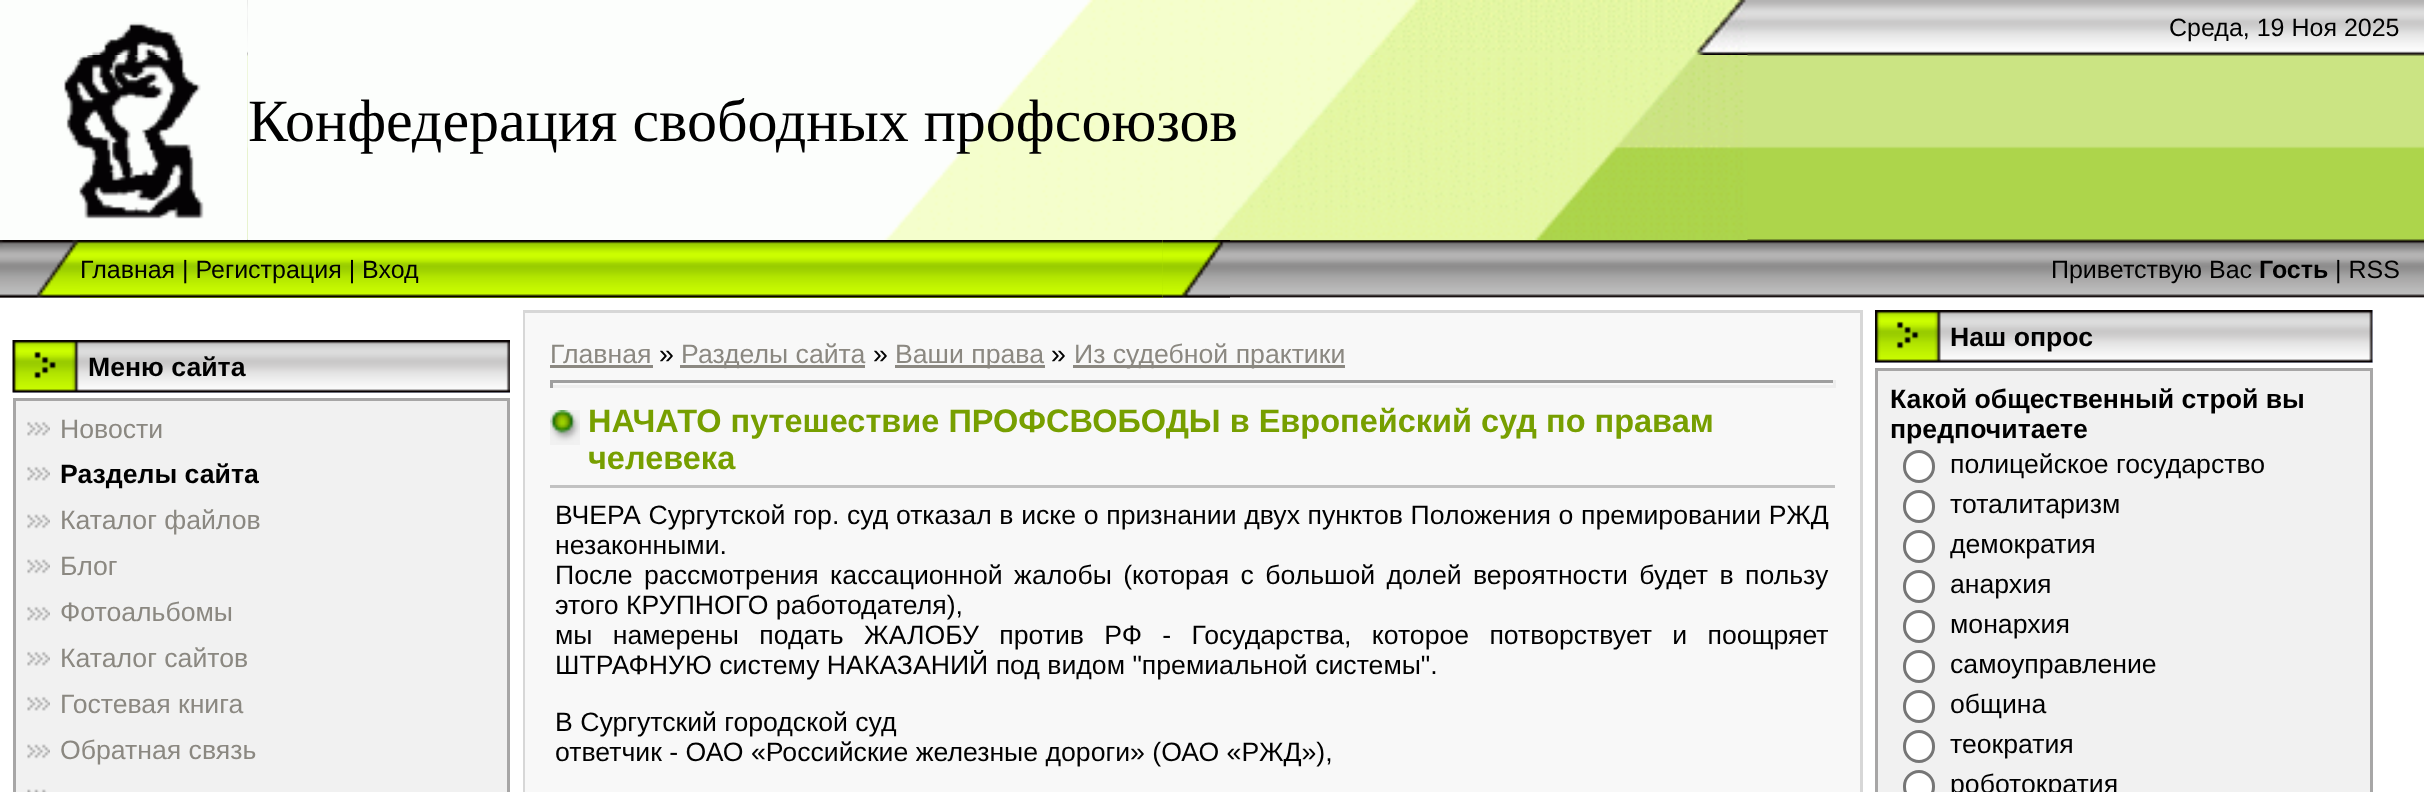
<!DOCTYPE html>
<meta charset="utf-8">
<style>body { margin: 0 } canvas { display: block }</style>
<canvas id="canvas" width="2424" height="792"></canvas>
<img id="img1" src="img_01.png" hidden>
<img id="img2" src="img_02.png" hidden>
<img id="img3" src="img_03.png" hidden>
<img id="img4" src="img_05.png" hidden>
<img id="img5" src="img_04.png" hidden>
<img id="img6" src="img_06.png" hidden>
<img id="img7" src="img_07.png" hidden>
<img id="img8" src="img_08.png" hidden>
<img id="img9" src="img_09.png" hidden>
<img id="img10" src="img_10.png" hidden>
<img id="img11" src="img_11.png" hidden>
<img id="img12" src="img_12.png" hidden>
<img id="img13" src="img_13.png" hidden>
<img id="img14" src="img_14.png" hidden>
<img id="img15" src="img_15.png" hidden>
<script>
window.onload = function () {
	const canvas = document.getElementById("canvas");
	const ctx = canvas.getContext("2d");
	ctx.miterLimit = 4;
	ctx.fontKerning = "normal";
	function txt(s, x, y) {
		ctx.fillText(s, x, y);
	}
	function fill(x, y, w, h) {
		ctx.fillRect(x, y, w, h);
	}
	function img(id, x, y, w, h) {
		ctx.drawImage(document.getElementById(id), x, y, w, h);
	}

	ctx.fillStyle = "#FFFFFF";
	fill(0, 0, 2424, 792);
	img("img1", 0, 0, 2424, 298);
	img("img2", 0, 0, 248, 55);
	img("img3", 247, 0, 1501, 55);
	img("img4", 247, 55, 1501, 185);
	img("img5", 0, 55, 248, 185);
	img("img6", 0, 240, 80, 58);
	ctx.fillStyle = "#B0E300";
	fill(80, 240, 1083, 58);
	img("img7", 80, 240, 1083, 58);
	img("img8", 1162, 240, 68, 58);
	ctx.fillStyle = "#D4DFF7";
	fill(13, 392, 497, 1);
	img("img9", 12, 340, 498, 53);
	ctx.fillStyle = "#F1F1F1";
	ctx.beginPath();
	ctx.rect(14.5, 399.5, 494, 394);
	ctx.fill();
	ctx.strokeStyle = "#A7A6A6";
	ctx.lineWidth = 3;
	ctx.stroke();
	img("img10", 27, 421, 23, 15);
	img("img10", 27, 466, 23, 15);
	img("img11", 27, 514, 23, 15);
	img("img12", 27, 559, 23, 15);
	img("img10", 27, 606, 23, 15);
	img("img10", 27, 651, 23, 15);
	img("img10", 27, 696, 23, 15);
	img("img12", 27, 744, 23, 15);
	img("img13", 27, 789, 20, 3);
	ctx.strokeStyle = "#D7D7D7";
	ctx.strokeRect(524.5, 311.5, 1337, 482);
	ctx.fillStyle = "#F8F8F8";
	fill(525, 313, 1335, 479);
	ctx.fillStyle = "#8B8881";
	fill(550, 365, 103, 3);
	fill(680, 365, 185, 3);
	fill(895, 365, 150, 3);
	fill(1073, 365, 272, 3);
	ctx.fillStyle = "#9F9F9F";
	fill(550, 380, 1285, 3);
	ctx.fillStyle = "#EEEEEE";
	fill(1833, 380, 3, 8);
	fill(550, 385, 1285, 3);
	ctx.fillStyle = "#9F9F9F";
	fill(550, 380, 3, 8);
	img("img14", 550, 410, 30, 35);
	ctx.fillStyle = "#C2C2C2";
	fill(550, 485, 1285, 3);
	ctx.fillStyle = "#D4DFF7";
	fill(1875, 310, 498, 53);
	img("img15", 1875, 310, 498, 53);
	ctx.fillStyle = "#F1F1F1";
	ctx.beginPath();
	ctx.rect(1876.5, 369.5, 495, 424);
	ctx.fill();
	ctx.strokeStyle = "#A7A6A6";
	ctx.stroke();
	ctx.fillStyle = "#FFFFFF";
	ctx.beginPath();
	ctx.roundRect(1904.5, 451.5, 29, 30, 14.5);
	ctx.fill();
	ctx.strokeStyle = "#767676";
	ctx.stroke();
	ctx.beginPath();
	ctx.roundRect(1904.5, 491.5, 29, 30, 14.5);
	ctx.fill();
	ctx.stroke();
	ctx.beginPath();
	ctx.roundRect(1904.5, 531.5, 29, 30, 14.5);
	ctx.fill();
	ctx.stroke();
	ctx.beginPath();
	ctx.roundRect(1904.5, 571.5, 29, 30, 14.5);
	ctx.fill();
	ctx.stroke();
	ctx.beginPath();
	ctx.roundRect(1904.5, 611.5, 29, 30, 14.5);
	ctx.fill();
	ctx.stroke();
	ctx.beginPath();
	ctx.roundRect(1904.5, 651.5, 29, 30, 14.5);
	ctx.fill();
	ctx.stroke();
	ctx.beginPath();
	ctx.roundRect(1904.5, 691.5, 29, 30, 14.5);
	ctx.fill();
	ctx.stroke();
	ctx.beginPath();
	ctx.roundRect(1904.5, 731.5, 29, 30, 14.5);
	ctx.fill();
	ctx.stroke();
	ctx.beginPath();
	ctx.roundRect(1904.5, 771.5, 29, 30, 14.5);
	ctx.fill();
	ctx.stroke();
	ctx.font = "25px Liberation Sans";
	ctx.fillStyle = "#000000";
	txt("Среда, 19 Ноя 2025", 2169, 36);
	ctx.font = "60px Liberation Serif";
	txt("Конфедерация свободных профсоюзов", 248, 141);
	ctx.font = "25px Liberation Sans";
	txt("Главная | Регистрация | Вход", 80, 278);
	txt("Приветствую Вас", 2051, 278);
	ctx.font = "bold 25px Liberation Sans";
	txt("Гость", 2259, 278);
	ctx.font = "25px Liberation Sans";
	txt("| RSS", 2335, 278);
	ctx.font = "bold 26.65px Liberation Sans";
	txt("Меню сайта", 88, 376);
	ctx.font = "26.65px Liberation Sans";
	ctx.fillStyle = "#8B8881";
	txt("Новости", 60, 438);
	ctx.font = "bold 26.65px Liberation Sans";
	ctx.fillStyle = "#000000";
	txt("Разделы сайта", 60, 483);
	ctx.font = "26.65px Liberation Sans";
	ctx.fillStyle = "#8B8881";
	txt("Каталог файлов", 60, 529);
	txt("Блог", 60, 575);
	txt("Фотоальбомы", 60, 621);
	txt("Каталог сайтов", 60, 667);
	txt("Гостевая книга", 60, 713);
	txt("Обратная связь", 60, 759);
	txt("Главная", 550, 363);
	ctx.fillStyle = "#000000";
	txt("»", 659, 363);
	ctx.fillStyle = "#8B8881";
	txt("Разделы сайта", 681, 363);
	ctx.fillStyle = "#000000";
	txt("»", 873, 363);
	ctx.fillStyle = "#8B8881";
	txt("Ваши права", 895, 363);
	ctx.fillStyle = "#000000";
	txt("»", 1051, 363);
	ctx.fillStyle = "#8B8881";
	txt("Из судебной практики", 1074, 363);
	ctx.font = "bold 32.5px Liberation Sans";
	ctx.fillStyle = "#779F00";
	txt("НАЧАТО путешествие ПРОФСВОБОДЫ в Европейский суд по правам", 588, 432);
	txt("челевека", 588, 469);
	ctx.wordSpacing = "0.25px";
	ctx.font = "26.65px Liberation Sans";
	ctx.fillStyle = "#000000";
	txt("ВЧЕРА Сургутской гор. суд отказал в иске о признании двух пунктов Положения о премировании РЖД", 555, 524);
	ctx.wordSpacing = "0px";
	txt("незаконными.", 555, 554);
	ctx.wordSpacing = "4px";
	txt("После рассмотрения кассационной жалобы (которая с большой долей вероятности будет в пользу", 555, 584);
	ctx.wordSpacing = "0px";
	txt("этого КРУПНОГО работодателя),", 555, 614);
	ctx.wordSpacing = "12.9px";
	txt("мы намерены подать ЖАЛОБУ против РФ - Государства, которое потворствует и поощряет", 555, 644);
	ctx.wordSpacing = "0px";
	txt("ШТРАФНУЮ систему НАКАЗАНИЙ под видом \"премиальной системы\".", 555, 674);
	txt("В Сургутский городской суд", 555, 731);
	txt("ответчик - ОАО «Российские железные дороги» (ОАО «РЖД»),", 555, 761);
	ctx.font = "bold 26.65px Liberation Sans";
	txt("Наш опрос", 1950, 346);
	txt("Какой общественный строй вы", 1890, 408);
	txt("предпочитаете", 1890, 438);
	ctx.font = "26.65px Liberation Sans";
	txt("полицейское государство", 1950, 473);
	txt("тоталитаризм", 1950, 513);
	txt("демократия", 1950, 553);
	txt("анархия", 1950, 593);
	txt("монархия", 1950, 633);
	txt("самоуправление", 1950, 673);
	txt("община", 1950, 713);
	txt("теократия", 1950, 753);
	txt("роботократия", 1950, 793);
};
</script>
